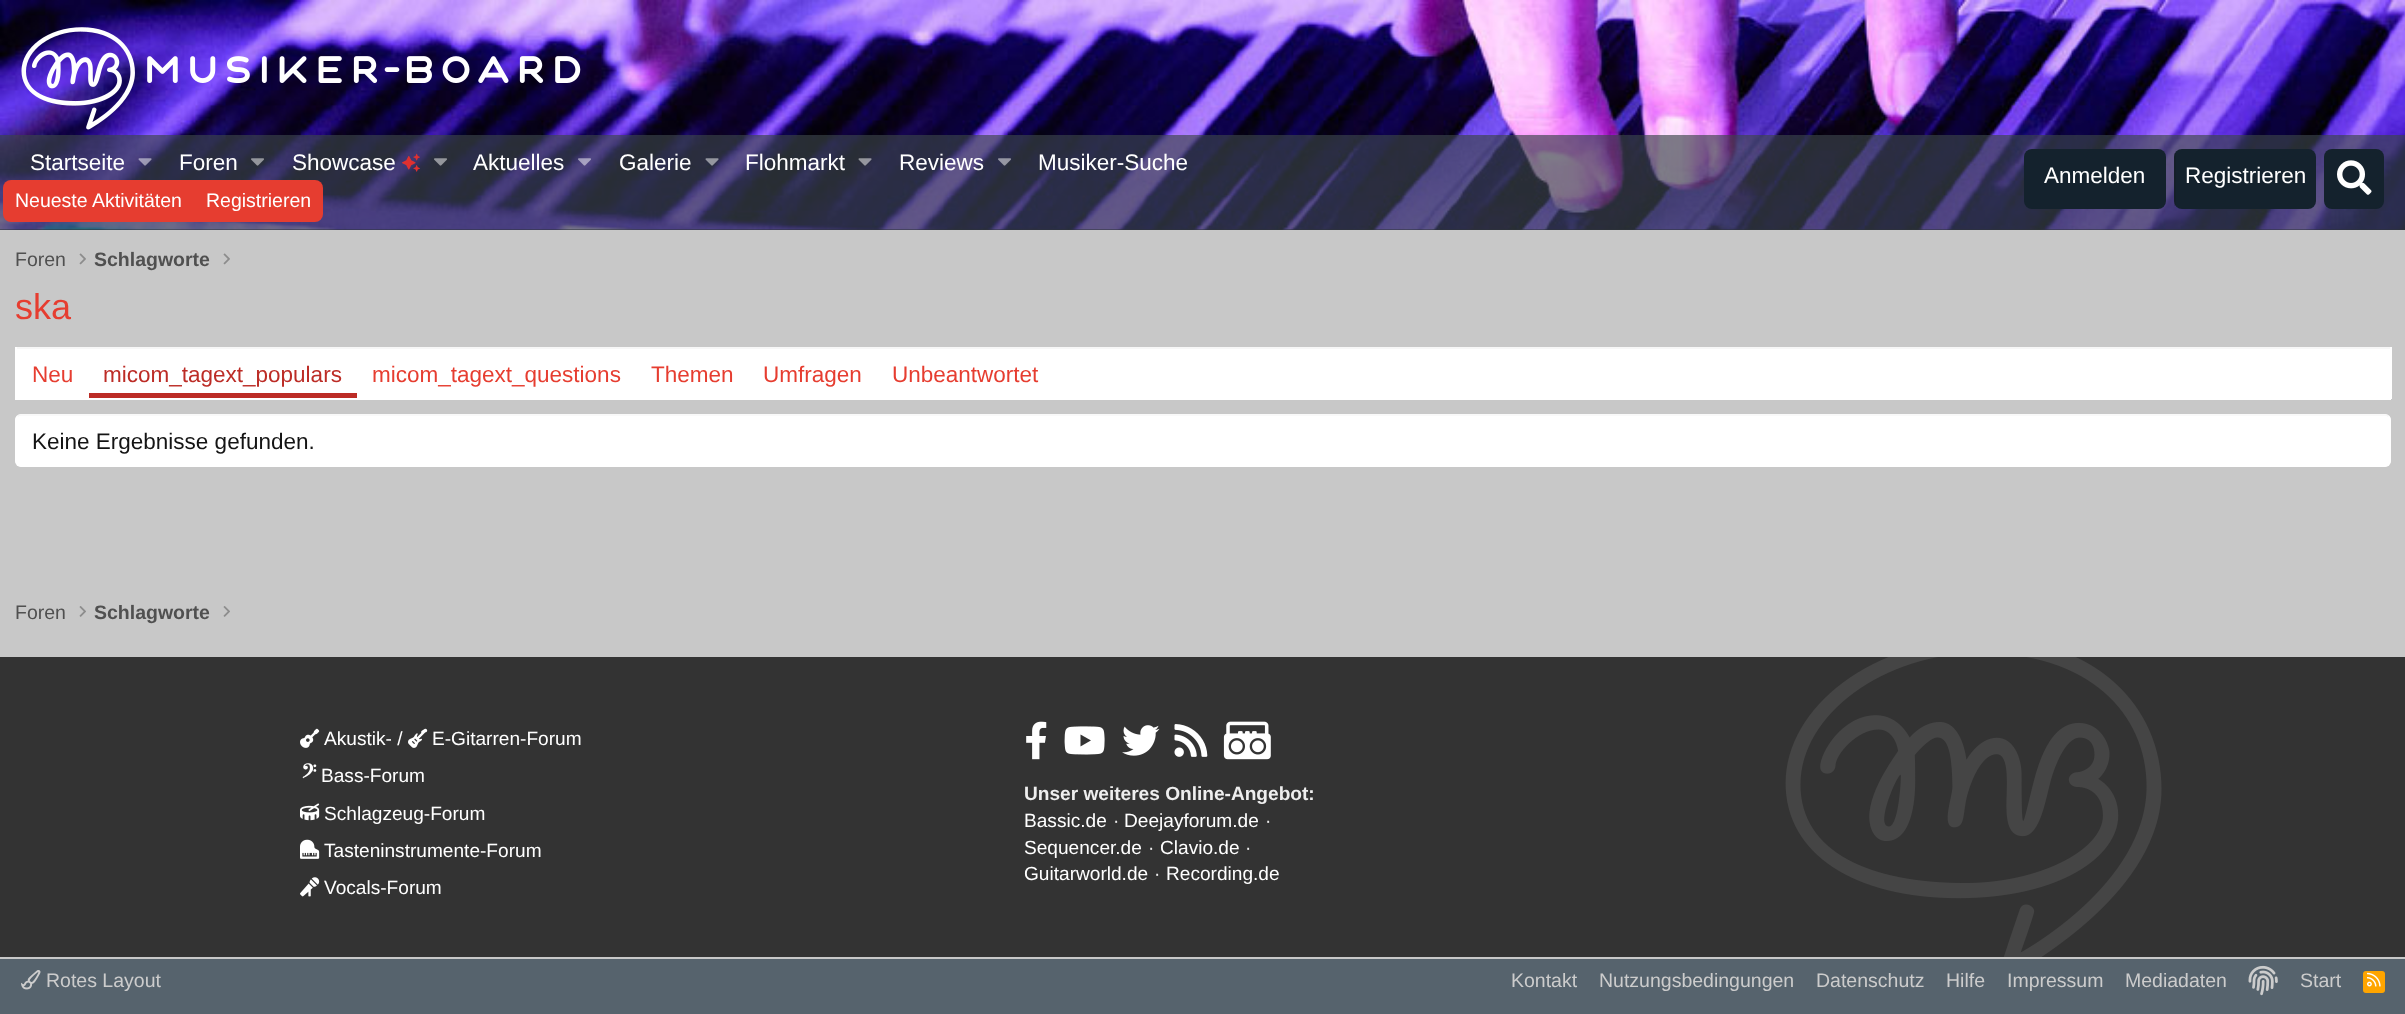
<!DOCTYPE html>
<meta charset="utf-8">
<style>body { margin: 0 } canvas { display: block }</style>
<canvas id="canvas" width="2405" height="1014"></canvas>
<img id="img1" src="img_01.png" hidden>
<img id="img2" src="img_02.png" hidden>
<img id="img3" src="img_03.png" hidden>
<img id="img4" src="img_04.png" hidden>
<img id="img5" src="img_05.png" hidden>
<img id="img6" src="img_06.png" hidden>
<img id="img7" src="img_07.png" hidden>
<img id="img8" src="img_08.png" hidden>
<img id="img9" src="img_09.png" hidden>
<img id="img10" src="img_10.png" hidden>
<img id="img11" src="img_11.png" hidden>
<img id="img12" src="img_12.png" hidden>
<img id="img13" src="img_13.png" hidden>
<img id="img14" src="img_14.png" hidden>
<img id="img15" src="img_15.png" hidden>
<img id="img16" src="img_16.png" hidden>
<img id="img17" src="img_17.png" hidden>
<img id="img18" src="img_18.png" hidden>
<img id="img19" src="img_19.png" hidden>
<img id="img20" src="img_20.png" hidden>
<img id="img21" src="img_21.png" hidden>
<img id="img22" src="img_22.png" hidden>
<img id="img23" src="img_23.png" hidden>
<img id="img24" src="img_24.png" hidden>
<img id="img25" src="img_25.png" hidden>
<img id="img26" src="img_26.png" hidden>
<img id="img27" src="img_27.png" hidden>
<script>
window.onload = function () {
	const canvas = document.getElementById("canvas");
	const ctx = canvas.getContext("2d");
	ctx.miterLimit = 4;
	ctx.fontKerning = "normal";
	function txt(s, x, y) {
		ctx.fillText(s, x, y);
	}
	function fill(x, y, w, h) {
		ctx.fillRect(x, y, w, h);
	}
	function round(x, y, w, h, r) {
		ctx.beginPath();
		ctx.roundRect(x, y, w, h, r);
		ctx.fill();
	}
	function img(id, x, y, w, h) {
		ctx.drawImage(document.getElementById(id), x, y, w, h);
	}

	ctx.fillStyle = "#C8C8C8";
	fill(0, 0, 2405, 1014);
	ctx.fillStyle = "#141414";
	fill(0, 229, 2405, 1);
	img("img1", 0, 0, 2405, 230);
	img("img2", 21, 27, 560, 103);
	ctx.fillStyle = "rgba(59, 68, 75, 0.66)";
	fill(0, 135, 2405, 45);
	img("img3", 138, 158, 14, 8);
	img("img4", 251, 158, 13, 8);
	img("img5", 402, 153, 18, 19);
	img("img6", 434, 158, 13, 8);
	img("img7", 578, 158, 13, 8);
	img("img8", 705, 158, 14, 8);
	img("img9", 858, 158, 14, 8);
	img("img10", 998, 158, 13, 8);
	fill(0, 180, 2405, 50);
	ctx.fillStyle = "#14222D";
	round(2024, 149, 142, 60, 8);
	round(2174, 149, 142, 60, 8);
	ctx.fillStyle = "rgba(20, 20, 20, 0.15)";
	fill(2174, 153, 2, 53);
	ctx.fillStyle = "#14222D";
	round(2324, 149, 60, 60, 8);
	img("img11", 2337, 160, 35, 35);
	ctx.fillStyle = "#E63D30";
	ctx.beginPath();
	ctx.roundRect(3, 180, 191, 42, [8, 0, 0, 8]);
	ctx.fill();
	ctx.beginPath();
	ctx.roundRect(194, 180, 129, 42, [0, 8, 8, 0]);
	ctx.fill();
	img("img12", 79, 253, 7, 12);
	img("img12", 223, 253, 7, 12);
	ctx.fillStyle = "#FFFFFF";
	fill(17, 349, 2373, 49);
	ctx.fillStyle = "#F7F7F7";
	fill(15, 347, 2376, 2);
	ctx.fillStyle = "#FFFFFF";
	fill(2390, 347, 2, 52);
	fill(15, 398, 2376, 2);
	fill(15, 347, 2, 52);
	ctx.fillStyle = "#BC2C26";
	fill(89, 393, 268, 5);
	ctx.fillStyle = "#FFFFFF";
	round(15, 414, 2376, 53, 6);
	ctx.beginPath();
	ctx.moveTo(17.5, 416.5);
	ctx.bezierCurveTo(18.5, 415.5, 19.5, 415, 21, 415);
	ctx.lineTo(2385, 415);
	ctx.bezierCurveTo(2386.5, 415, 2387.5, 415.5, 2388.5, 416.5);
	ctx.strokeStyle = "#F7F7F7";
	ctx.lineWidth = 1.5;
	ctx.stroke();
	ctx.beginPath();
	ctx.moveTo(2388.5, 416.5);
	ctx.bezierCurveTo(2389.5, 417.5, 2390, 418.5, 2390, 420);
	ctx.lineTo(2390, 460.5);
	ctx.bezierCurveTo(2390, 462, 2389.5, 463, 2388.5, 464);
	ctx.bezierCurveTo(2387.5, 465, 2386.5, 466, 2385, 466);
	ctx.lineTo(21, 466);
	ctx.bezierCurveTo(19.5, 466, 18.5, 465, 17.5, 464);
	ctx.bezierCurveTo(16.5, 463, 16, 462, 16, 460.5);
	ctx.lineTo(16, 420);
	ctx.bezierCurveTo(16, 418.5, 16.5, 417.5, 17.5, 416.5);
	ctx.strokeStyle = "#FFFFFF";
	ctx.stroke();
	img("img13", 79, 606, 7, 11);
	img("img13", 223, 606, 7, 11);
	ctx.fillStyle = "#333333";
	fill(0, 657, 2405, 300);
	img("img14", 300, 728, 20, 20);
	img("img15", 408, 728, 20, 20);
	img("img16", 300, 803, 20, 18);
	img("img17", 300, 839, 20, 20);
	img("img18", 300, 877, 20, 20);
	img("img19", 1026, 721, 21, 39);
	img("img20", 1064, 726, 41, 29);
	img("img21", 1122, 725, 38, 31);
	img("img22", 1174, 724, 34, 33);
	img("img23", 1223, 721, 48, 39);
	img("img24", 1785, 657, 377, 300);
	ctx.fillStyle = "#56636D";
	fill(0, 959, 2405, 55);
	img("img25", 21, 970, 20, 20);
	img("img26", 2248, 965, 30, 31);
	ctx.fillStyle = "#FFA500";
	round(2363, 971, 22, 22, 3);
	img("img27", 2367, 972, 14, 15);
	ctx.font = "22.5px Liberation Sans";
	ctx.fillStyle = "#FFFFFF";
	txt("Startseite", 30, 170);
	txt("Foren", 179, 170);
	txt("Showcase", 292, 170);
	txt("Aktuelles", 473, 170);
	txt("Galerie", 619, 170);
	txt("Flohmarkt", 745, 170);
	txt("Reviews", 899, 170);
	txt("Musiker-Suche", 1038, 170);
	txt("Anmelden", 2044, 183);
	txt("Registrieren", 2185, 183);
	ctx.font = "19.5px Liberation Sans";
	txt("Neueste Aktivitäten", 15, 207);
	txt("Registrieren", 206, 207);
	ctx.fillStyle = "#505050";
	txt("Foren", 15, 266);
	ctx.font = "bold 19.5px Liberation Sans";
	txt("Schlagworte", 94, 266);
	ctx.font = "36px Liberation Sans";
	ctx.fillStyle = "#E63D30";
	txt("ska", 15, 319);
	ctx.font = "22.5px Liberation Sans";
	txt("Neu", 32, 382);
	ctx.fillStyle = "#BC2C26";
	txt("micom_tagext_populars", 103, 382);
	ctx.fillStyle = "#E63D30";
	txt("micom_tagext_questions", 372, 382);
	txt("Themen", 651, 382);
	txt("Umfragen", 763, 382);
	txt("Unbeantwortet", 892, 382);
	ctx.fillStyle = "#141414";
	txt("Keine Ergebnisse gefunden.", 32, 449);
	ctx.font = "19.5px Liberation Sans";
	ctx.fillStyle = "#505050";
	txt("Foren", 15, 619);
	ctx.font = "bold 19.5px Liberation Sans";
	txt("Schlagworte", 94, 619);
	ctx.font = "19.1px Liberation Sans";
	ctx.fillStyle = "#FFFFFF";
	txt("Akustik- /", 324, 745);
	txt("E-Gitarren-Forum", 432, 745);
	ctx.font = "bold 24px FreeSerif";
	txt("𝄢", 301, 782);
	ctx.font = "19.1px Liberation Sans";
	txt("Bass-Forum", 321, 782);
	txt("Schlagzeug-Forum", 324, 820);
	txt("Tasteninstrumente-Forum", 324, 857);
	txt("Vocals-Forum", 324, 894);
	ctx.font = "bold 19.1px Liberation Sans";
	ctx.fillStyle = "#EEEEEE";
	txt("Unser weiteres Online-Angebot:", 1024, 800);
	ctx.font = "19.1px Liberation Sans";
	ctx.fillStyle = "#FFFFFF";
	txt("Bassic.de", 1024, 827);
	ctx.fillStyle = "#EEEEEE";
	txt("·", 1113, 827);
	ctx.fillStyle = "#FFFFFF";
	txt("Deejayforum.de", 1124, 827);
	ctx.fillStyle = "#EEEEEE";
	txt("·", 1265, 827);
	ctx.fillStyle = "#FFFFFF";
	txt("Sequencer.de", 1024, 854);
	ctx.fillStyle = "#EEEEEE";
	txt("·", 1148, 854);
	ctx.fillStyle = "#FFFFFF";
	txt("Clavio.de", 1160, 854);
	ctx.fillStyle = "#EEEEEE";
	txt("·", 1245, 854);
	ctx.fillStyle = "#FFFFFF";
	txt("Guitarworld.de", 1024, 880);
	ctx.fillStyle = "#EEEEEE";
	txt("·", 1154, 880);
	ctx.fillStyle = "#FFFFFF";
	txt("Recording.de", 1166, 880);
	ctx.font = "19.5px Liberation Sans";
	ctx.fillStyle = "#CCCCCC";
	txt("Rotes Layout", 46, 987);
	txt("Kontakt", 1511, 987);
	txt("Nutzungsbedingungen", 1599, 987);
	txt("Datenschutz", 1816, 987);
	txt("Hilfe", 1946, 987);
	txt("Impressum", 2007, 987);
	txt("Mediadaten", 2125, 987);
	txt("Start", 2300, 987);
};
</script>
